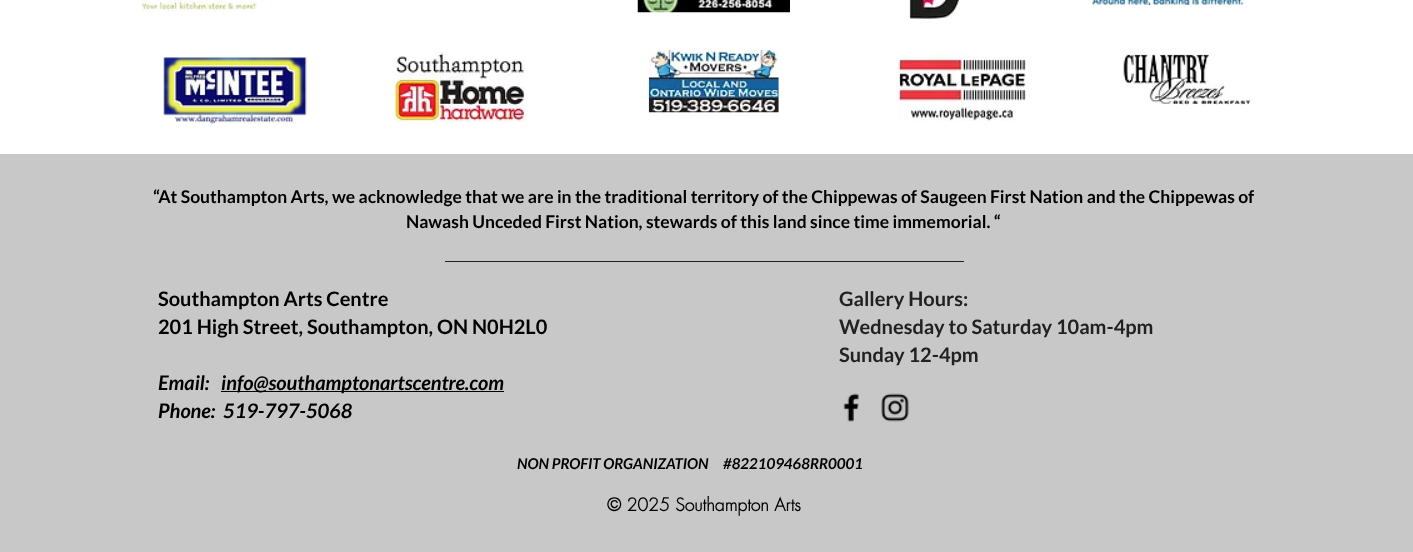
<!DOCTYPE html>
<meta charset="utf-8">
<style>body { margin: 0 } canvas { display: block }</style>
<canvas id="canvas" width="1413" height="552"></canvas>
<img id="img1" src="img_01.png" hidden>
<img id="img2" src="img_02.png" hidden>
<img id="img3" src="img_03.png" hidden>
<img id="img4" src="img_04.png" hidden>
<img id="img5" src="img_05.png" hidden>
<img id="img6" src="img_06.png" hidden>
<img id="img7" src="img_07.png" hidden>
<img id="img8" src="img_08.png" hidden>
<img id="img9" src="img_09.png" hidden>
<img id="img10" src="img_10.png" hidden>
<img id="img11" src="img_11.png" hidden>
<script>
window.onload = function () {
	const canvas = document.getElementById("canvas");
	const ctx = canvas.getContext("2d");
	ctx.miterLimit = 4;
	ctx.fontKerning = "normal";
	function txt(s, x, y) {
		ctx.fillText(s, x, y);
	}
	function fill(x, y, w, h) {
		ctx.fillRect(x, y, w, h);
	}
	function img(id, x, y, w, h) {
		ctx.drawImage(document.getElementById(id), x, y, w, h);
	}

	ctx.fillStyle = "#C8C8C8";
	fill(0, 0, 1413, 552);
	ctx.fillStyle = "#FFFFFF";
	fill(0, 0, 1413, 154);
	img("img1", 141, 0, 117, 15);
	img("img2", 637, 0, 153, 13);
	img("img3", 908, 0, 51, 19);
	img("img4", 1092, 0, 152, 5);
	img("img5", 163, 57, 144, 67);
	img("img6", 393, 51, 133, 72);
	img("img7", 648, 50, 131, 63);
	img("img8", 896, 51, 130, 70);
	img("img9", 1123, 54, 128, 51);
	ctx.fillStyle = "#212121";
	fill(445, 261, 519, 1);
	ctx.fillStyle = "#000000";
	fill(221, 391, 283, 1);
	img("img10", 843, 393, 16, 29);
	img("img11", 881, 393, 28, 29);
	ctx.font = "bold 17.5px Lato";
	txt("“At Southampton Arts, we acknowledge that we are in the traditional territory of the Chippewas of Saugeen First Nation and the Chippewas of", 153, 203);
	txt("Nawash Unceded First Nation, stewards of this land since time immemorial. “", 406, 228);
	ctx.font = "bold 20px Lato";
	txt("Southampton Arts Centre", 158, 306);
	txt("201 High Street, Southampton, ON N0H2L0", 158, 334);
	ctx.font = "italic bold 20px Lato";
	txt("Email:", 158, 390);
	txt("info@southamptonartscentre.com", 221, 390);
	txt("Phone:  519-797-5068", 158, 418);
	ctx.font = "bold 20px Lato";
	ctx.fillStyle = "#212121";
	txt("Gallery Hours:", 839, 306);
	txt("Wednesday to Saturday 10am-4pm", 839, 334);
	txt("Sunday 12-4pm", 839, 362);
	ctx.font = "italic bold 15px Lato";
	ctx.fillStyle = "#000000";
	txt("NON PROFIT ORGANIZATION     #822109468RR0001", 517, 469);
	ctx.font = "bold 17.5px futura";
	txt("© 2025 Southampton Arts", 607, 511);
};
</script>
